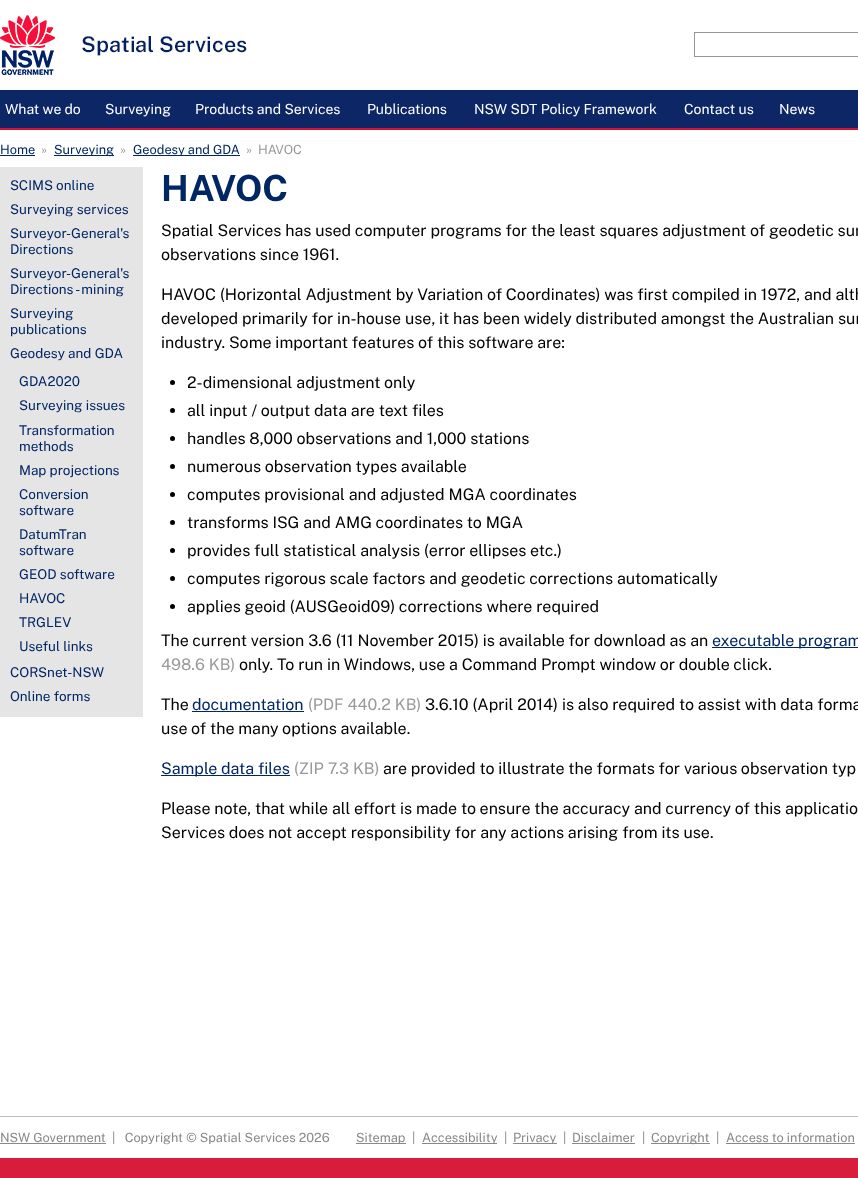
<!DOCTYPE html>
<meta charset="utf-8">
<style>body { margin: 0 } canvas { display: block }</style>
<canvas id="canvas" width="858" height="1178"></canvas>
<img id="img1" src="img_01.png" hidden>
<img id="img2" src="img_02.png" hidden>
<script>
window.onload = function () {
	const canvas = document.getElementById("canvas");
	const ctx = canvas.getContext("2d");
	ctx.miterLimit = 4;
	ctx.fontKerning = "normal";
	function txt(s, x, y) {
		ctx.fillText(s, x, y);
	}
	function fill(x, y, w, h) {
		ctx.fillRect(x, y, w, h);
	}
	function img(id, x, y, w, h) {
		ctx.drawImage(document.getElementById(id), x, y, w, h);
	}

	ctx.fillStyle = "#FFFFFF";
	fill(0, 0, 858, 1178);
	img("img1", 0, 90, 858, 40);
	img("img2", 0, 15, 247, 60);
	ctx.strokeStyle = "#969696";
	ctx.strokeRect(694.5, 32.5, 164, 24);
	ctx.fillStyle = "#002664";
	fill(0, 155, 35, 1);
	fill(54, 155, 60, 1);
	fill(133, 155, 107, 1);
	ctx.fillStyle = "#E5E5E5";
	fill(0, 167, 143, 550);
	ctx.fillStyle = "#000000";
	ctx.beginPath();
	ctx.arc(172.5, 382.5, 2.5, 0, Math.PI * 2);
	ctx.fill();
	ctx.beginPath();
	ctx.arc(172.5, 410.5, 2.5, 0, Math.PI * 2);
	ctx.fill();
	ctx.beginPath();
	ctx.arc(172.5, 438.5, 2.5, 0, Math.PI * 2);
	ctx.fill();
	ctx.beginPath();
	ctx.arc(172.5, 466.5, 2.5, 0, Math.PI * 2);
	ctx.fill();
	ctx.beginPath();
	ctx.arc(172.5, 494.5, 2.5, 0, Math.PI * 2);
	ctx.fill();
	ctx.beginPath();
	ctx.arc(172.5, 522.5, 2.5, 0, Math.PI * 2);
	ctx.fill();
	ctx.beginPath();
	ctx.arc(172.5, 550.5, 2.5, 0, Math.PI * 2);
	ctx.fill();
	ctx.beginPath();
	ctx.arc(172.5, 578.5, 2.5, 0, Math.PI * 2);
	ctx.fill();
	ctx.beginPath();
	ctx.arc(172.5, 606.5, 2.5, 0, Math.PI * 2);
	ctx.fill();
	ctx.fillStyle = "#002664";
	fill(712, 647, 146, 1);
	fill(192, 711, 112, 1);
	fill(161, 775, 129, 1);
	ctx.fillStyle = "#BABEC6";
	fill(0, 1116, 858, 1);
	ctx.fillStyle = "#D71D3B";
	fill(0, 1158, 858, 20);
	ctx.fillStyle = "#888888";
	fill(0, 1143, 106, 1);
	fill(356, 1143, 50, 1);
	fill(422, 1143, 75, 1);
	fill(513, 1143, 44, 1);
	fill(572, 1143, 63, 1);
	fill(651, 1143, 59, 1);
	fill(726, 1143, 129, 1);
	ctx.font = "14px Public Sans";
	ctx.fillStyle = "#FFFFFF";
	txt("What we do", 5, 114);
	txt("Surveying", 105, 114);
	txt("Products and Services", 195, 114);
	txt("Publications", 367, 114);
	txt("NSW SDT Policy Framework", 474, 114);
	txt("Contact us", 684, 114);
	txt("News", 779, 114);
	ctx.font = "12.75px Public Sans";
	ctx.fillStyle = "#002664";
	txt("Home", 0, 154);
	ctx.fillStyle = "#999999";
	txt("»", 41, 154);
	ctx.fillStyle = "#002664";
	txt("Surveying", 54, 154);
	ctx.fillStyle = "#999999";
	txt("»", 120, 154);
	ctx.fillStyle = "#002664";
	txt("Geodesy and GDA", 133, 154);
	ctx.fillStyle = "#999999";
	txt("»", 246, 154);
	txt("HAVOC", 258, 154);
	ctx.font = "13.5px Public Sans";
	ctx.fillStyle = "#002664";
	txt("SCIMS online", 10, 190);
	txt("Surveying services", 10, 214);
	txt("Surveyor-General's", 10, 238);
	txt("Directions", 10, 254);
	txt("Surveyor-General's", 10, 278);
	txt("Directions - mining", 10, 294);
	txt("Surveying", 10, 318);
	txt("publications", 10, 334);
	txt("Geodesy and GDA", 10, 358);
	txt("GDA2020", 19, 386);
	txt("Surveying issues", 19, 410);
	txt("Transformation", 19, 435);
	txt("methods", 19, 451);
	txt("Map projections", 19, 475);
	txt("Conversion", 19, 499);
	txt("software", 19, 515);
	txt("DatumTran", 19, 539);
	txt("software", 19, 555);
	txt("GEOD software", 19, 579);
	txt("HAVOC", 19, 603);
	txt("TRGLEV", 19, 627);
	txt("Useful links", 19, 651);
	txt("CORSnet-NSW", 10, 677);
	txt("Online forms", 10, 701);
	ctx.font = "bold 36px Public Sans";
	txt("HAVOC", 161, 201);
	ctx.font = "16px Public Sans";
	ctx.fillStyle = "#000000";
	txt("Spatial Services has used computer programs for the least squares adjustment of geodetic sur", 161, 236);
	txt("observations since 1961.", 161, 260);
	txt("HAVOC (Horizontal Adjustment by Variation of Coordinates) was first compiled in 1972, and alth", 161, 300);
	txt("developed primarily for in-house use, it has been widely distributed amongst the Australian sur", 161, 324);
	txt("industry. Some important features of this software are:", 161, 348);
	txt("2-dimensional adjustment only", 187, 388);
	txt("all input / output data are text files", 187, 416);
	txt("handles 8,000 observations and 1,000 stations", 187, 444);
	txt("numerous observation types available", 187, 472);
	txt("computes provisional and adjusted MGA coordinates", 187, 500);
	txt("transforms ISG and AMG coordinates to MGA", 187, 528);
	txt("provides full statistical analysis (error ellipses etc.)", 187, 556);
	txt("computes rigorous scale factors and geodetic corrections automatically", 187, 584);
	txt("applies geoid (AUSGeoid09) corrections where required", 187, 612);
	txt("The current version 3.6 (11 November 2015) is available for download as an", 161, 646);
	ctx.fillStyle = "#002664";
	txt("executable program", 712, 646);
	ctx.fillStyle = "#999999";
	txt("498.6 KB)", 161, 670);
	ctx.fillStyle = "#000000";
	txt("only. To run in Windows, use a Command Prompt window or double click.", 239, 670);
	txt("The", 161, 710);
	ctx.fillStyle = "#002664";
	txt("documentation", 192, 710);
	ctx.fillStyle = "#999999";
	txt("(PDF 440.2 KB)", 308, 710);
	ctx.fillStyle = "#000000";
	txt("3.6.10 (April 2014) is also required to assist with data forma", 425, 710);
	txt("use of the many options available.", 161, 734);
	ctx.fillStyle = "#002664";
	txt("Sample data files", 161, 774);
	ctx.fillStyle = "#999999";
	txt("(ZIP 7.3 KB)", 294, 774);
	ctx.fillStyle = "#000000";
	txt("are provided to illustrate the formats for various observation typ", 383, 774);
	txt("Please note, that while all effort is made to ensure the accuracy and currency of this applicatio", 161, 814);
	txt("Services does not accept responsibility for any actions arising from its use.", 161, 838);
	ctx.font = "12.75px Public Sans";
	ctx.fillStyle = "#888888";
	txt("NSW Government", 0, 1142);
	txt("|   Copyright © Spatial Services 2026", 112, 1142);
	txt("Sitemap", 356, 1142);
	txt("|", 412, 1142);
	txt("Accessibility", 422, 1142);
	txt("|", 504, 1142);
	txt("Privacy", 513, 1142);
	txt("|", 563, 1142);
	txt("Disclaimer", 572, 1142);
	txt("|", 642, 1142);
	txt("Copyright", 651, 1142);
	txt("|", 716, 1142);
	txt("Access to information", 726, 1142);
};
</script>
